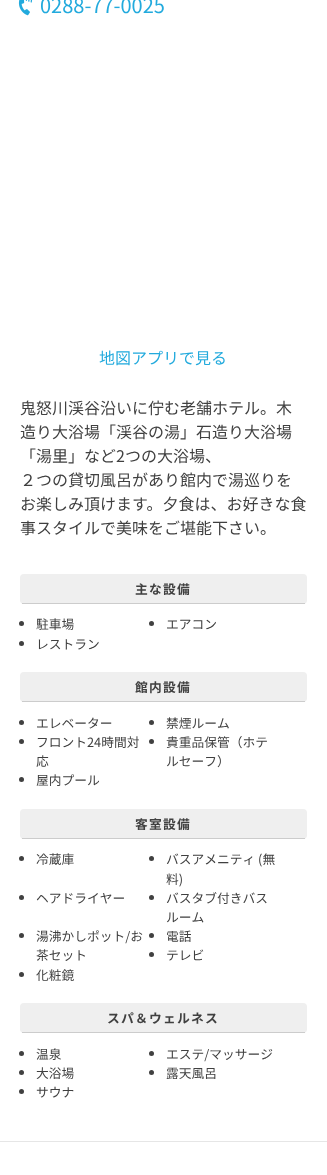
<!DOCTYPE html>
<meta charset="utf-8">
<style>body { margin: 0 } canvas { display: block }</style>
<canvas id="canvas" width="327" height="1175"></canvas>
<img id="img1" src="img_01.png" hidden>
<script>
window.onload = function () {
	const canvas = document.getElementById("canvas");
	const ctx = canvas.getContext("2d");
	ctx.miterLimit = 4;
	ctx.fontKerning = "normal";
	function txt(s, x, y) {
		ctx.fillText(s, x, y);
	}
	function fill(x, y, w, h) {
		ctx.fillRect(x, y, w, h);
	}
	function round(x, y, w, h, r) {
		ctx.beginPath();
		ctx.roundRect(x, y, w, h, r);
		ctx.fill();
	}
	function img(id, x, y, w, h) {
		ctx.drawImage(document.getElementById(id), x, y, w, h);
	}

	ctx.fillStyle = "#FFFFFF";
	fill(0, 0, 327, 1175);
	img("img1", 18, 0, 15, 16);
	ctx.fillStyle = "#EFEFEF";
	round(20, 574, 287, 30, 4);
	ctx.fillStyle = "#CCCCCC";
	fill(22, 603, 283, 1);
	ctx.fillStyle = "#404040";
	ctx.beginPath();
	ctx.arc(21.5, 623.5, 2.5, 0, Math.PI * 2);
	ctx.fill();
	ctx.beginPath();
	ctx.arc(151.5, 623.5, 2.5, 0, Math.PI * 2);
	ctx.fill();
	ctx.beginPath();
	ctx.arc(21.5, 643.5, 2.5, 0, Math.PI * 2);
	ctx.fill();
	ctx.fillStyle = "#EFEFEF";
	round(20, 672, 287, 30, 4);
	ctx.fillStyle = "#CCCCCC";
	fill(22, 701, 283, 1);
	ctx.fillStyle = "#404040";
	ctx.beginPath();
	ctx.arc(21.5, 722.5, 2.5, 0, Math.PI * 2);
	ctx.fill();
	ctx.beginPath();
	ctx.arc(151.5, 722.5, 2.5, 0, Math.PI * 2);
	ctx.fill();
	ctx.beginPath();
	ctx.arc(21.5, 741.5, 2.5, 0, Math.PI * 2);
	ctx.fill();
	ctx.beginPath();
	ctx.arc(151.5, 741.5, 2.5, 0, Math.PI * 2);
	ctx.fill();
	ctx.beginPath();
	ctx.arc(21.5, 779.5, 2.5, 0, Math.PI * 2);
	ctx.fill();
	ctx.fillStyle = "#EFEFEF";
	round(20, 809, 287, 30, 4);
	ctx.fillStyle = "#CCCCCC";
	fill(22, 838, 283, 1);
	ctx.fillStyle = "#404040";
	ctx.beginPath();
	ctx.arc(21.5, 858.5, 2.5, 0, Math.PI * 2);
	ctx.fill();
	ctx.beginPath();
	ctx.arc(151.5, 858.5, 2.5, 0, Math.PI * 2);
	ctx.fill();
	ctx.beginPath();
	ctx.arc(21.5, 897.5, 2.5, 0, Math.PI * 2);
	ctx.fill();
	ctx.beginPath();
	ctx.arc(151.5, 897.5, 2.5, 0, Math.PI * 2);
	ctx.fill();
	ctx.beginPath();
	ctx.arc(21.5, 935.5, 2.5, 0, Math.PI * 2);
	ctx.fill();
	ctx.beginPath();
	ctx.arc(151.5, 935.5, 2.5, 0, Math.PI * 2);
	ctx.fill();
	ctx.beginPath();
	ctx.arc(151.5, 954.5, 2.5, 0, Math.PI * 2);
	ctx.fill();
	ctx.beginPath();
	ctx.arc(21.5, 974.5, 2.5, 0, Math.PI * 2);
	ctx.fill();
	ctx.fillStyle = "#EFEFEF";
	round(20, 1003, 287, 30, 4);
	ctx.fillStyle = "#CCCCCC";
	fill(22, 1032, 283, 1);
	ctx.fillStyle = "#404040";
	ctx.beginPath();
	ctx.arc(21.5, 1053.5, 2.5, 0, Math.PI * 2);
	ctx.fill();
	ctx.beginPath();
	ctx.arc(151.5, 1053.5, 2.5, 0, Math.PI * 2);
	ctx.fill();
	ctx.beginPath();
	ctx.arc(21.5, 1072.5, 2.5, 0, Math.PI * 2);
	ctx.fill();
	ctx.beginPath();
	ctx.arc(151.5, 1072.5, 2.5, 0, Math.PI * 2);
	ctx.fill();
	ctx.beginPath();
	ctx.arc(21.5, 1091.5, 2.5, 0, Math.PI * 2);
	ctx.fill();
	ctx.fillStyle = "#E6E6E6";
	fill(0, 1141, 327, 1);
	ctx.font = "20px Noto Sans JP";
	ctx.fillStyle = "#22AADD";
	txt("0288-77-0025", 40, 13);
	ctx.font = "16px Noto Sans JP";
	txt("地図アプリで見る", 99, 364);
	ctx.fillStyle = "#404040";
	txt("鬼怒川渓谷沿いに佇む老舗ホテル。木", 20, 414);
	txt("造り大浴場「渓谷の湯」石造り大浴場", 20, 438);
	txt("「湯里」など2つの大浴場、", 20, 462);
	txt("２つの貸切風呂があり館内で湯巡りを", 20, 486);
	txt("お楽しみ頂けます。夕食は、お好きな食", 20, 510);
	txt("事スタイルで美味をご堪能下さい。", 20, 534);
	ctx.letterSpacing = "1.25px";
	ctx.font = "bold 12.75px Noto Sans JP";
	txt("主な設備", 135, 594);
	ctx.letterSpacing = "0px";
	ctx.font = "12.75px Noto Sans JP";
	txt("駐車場", 36, 629);
	txt("エアコン", 166, 629);
	txt("レストラン", 36, 649);
	ctx.letterSpacing = "1.25px";
	ctx.font = "bold 12.75px Noto Sans JP";
	txt("館内設備", 135, 692);
	ctx.letterSpacing = "0px";
	ctx.font = "12.75px Noto Sans JP";
	txt("エレベーター", 36, 728);
	txt("禁煙ルーム", 166, 728);
	txt("フロント24時間対", 36, 747);
	txt("応", 36, 766);
	txt("貴重品保管（ホテ", 166, 747);
	txt("ルセーフ）", 166, 766);
	txt("屋内プール", 36, 785);
	ctx.letterSpacing = "1.25px";
	ctx.font = "bold 12.75px Noto Sans JP";
	txt("客室設備", 135, 829);
	ctx.letterSpacing = "0px";
	ctx.font = "12.75px Noto Sans JP";
	txt("冷蔵庫", 36, 864);
	txt("バスアメニティ (無", 166, 864);
	txt("料)", 166, 884);
	txt("ヘアドライヤー", 36, 903);
	txt("バスタブ付きバス", 166, 903);
	txt("ルーム", 166, 922);
	txt("湯沸かしポット/お", 36, 941);
	txt("茶セット", 36, 960);
	txt("電話", 166, 941);
	txt("テレビ", 166, 960);
	txt("化粧鏡", 36, 980);
	ctx.letterSpacing = "1.25px";
	ctx.font = "bold 12.75px Noto Sans JP";
	txt("スパ＆ウェルネス", 107, 1023);
	ctx.letterSpacing = "0px";
	ctx.font = "12.75px Noto Sans JP";
	txt("温泉", 36, 1059);
	txt("エステ/マッサージ", 166, 1059);
	txt("大浴場", 36, 1078);
	txt("露天風呂", 166, 1078);
	txt("サウナ", 36, 1097);
};
</script>
